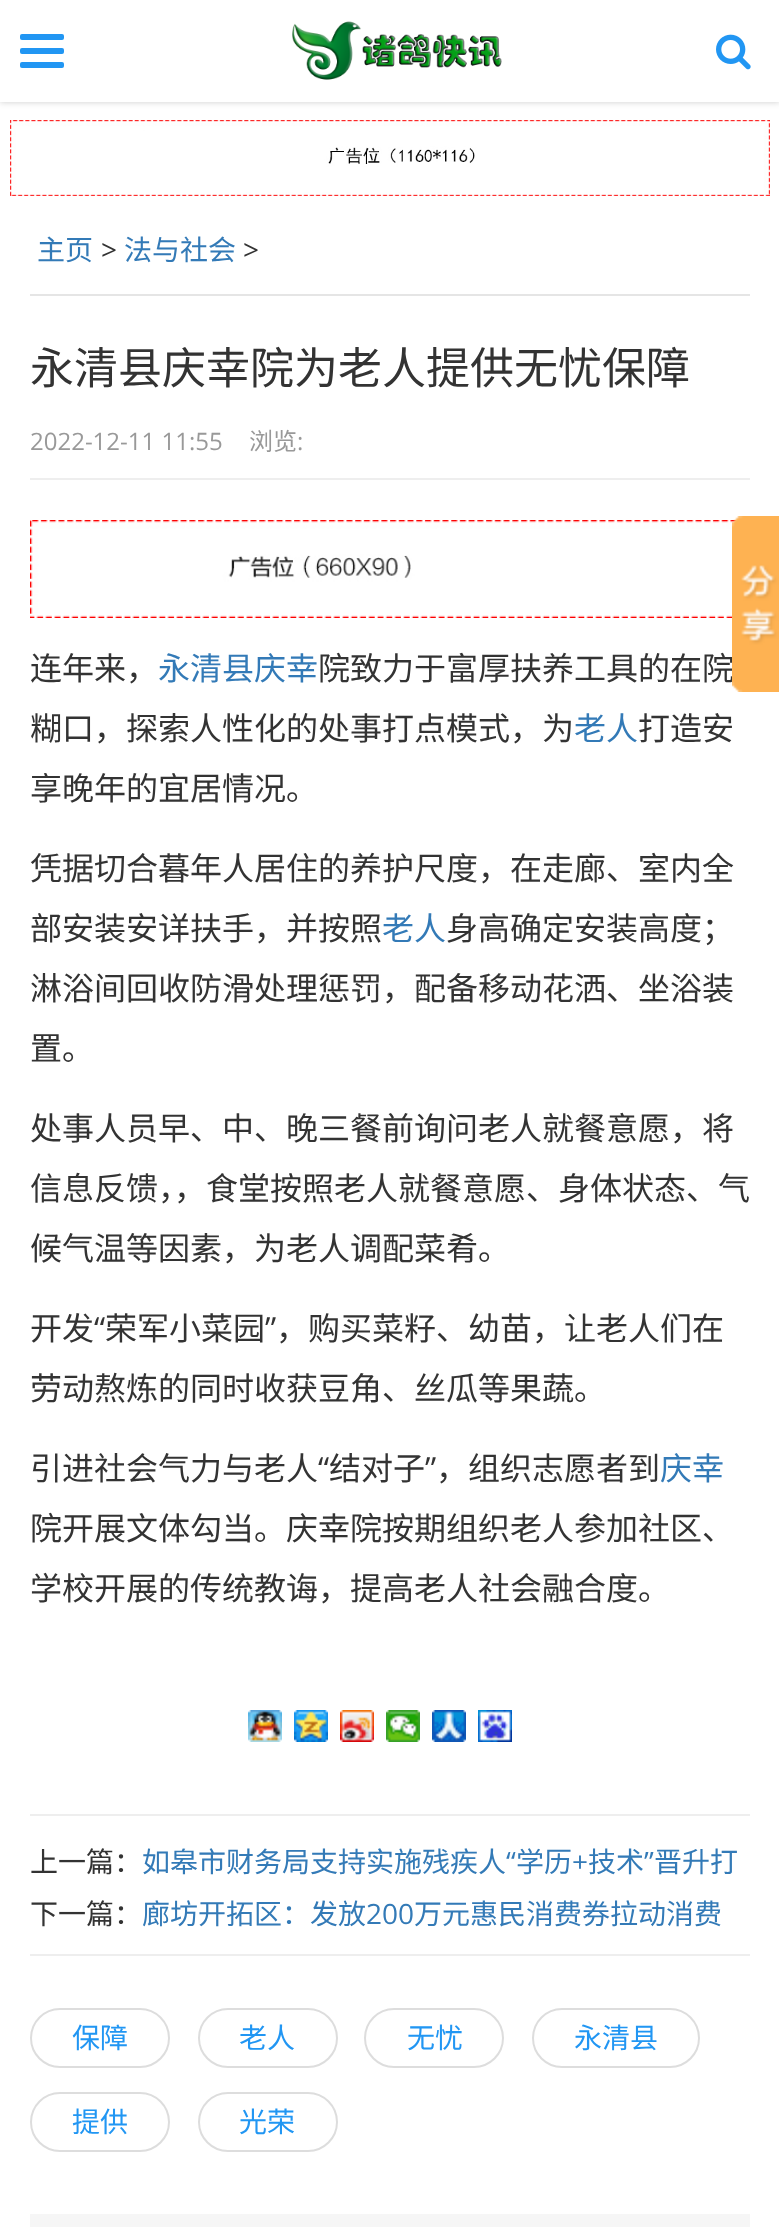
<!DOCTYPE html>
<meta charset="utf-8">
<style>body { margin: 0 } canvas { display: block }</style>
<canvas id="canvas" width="779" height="2227"></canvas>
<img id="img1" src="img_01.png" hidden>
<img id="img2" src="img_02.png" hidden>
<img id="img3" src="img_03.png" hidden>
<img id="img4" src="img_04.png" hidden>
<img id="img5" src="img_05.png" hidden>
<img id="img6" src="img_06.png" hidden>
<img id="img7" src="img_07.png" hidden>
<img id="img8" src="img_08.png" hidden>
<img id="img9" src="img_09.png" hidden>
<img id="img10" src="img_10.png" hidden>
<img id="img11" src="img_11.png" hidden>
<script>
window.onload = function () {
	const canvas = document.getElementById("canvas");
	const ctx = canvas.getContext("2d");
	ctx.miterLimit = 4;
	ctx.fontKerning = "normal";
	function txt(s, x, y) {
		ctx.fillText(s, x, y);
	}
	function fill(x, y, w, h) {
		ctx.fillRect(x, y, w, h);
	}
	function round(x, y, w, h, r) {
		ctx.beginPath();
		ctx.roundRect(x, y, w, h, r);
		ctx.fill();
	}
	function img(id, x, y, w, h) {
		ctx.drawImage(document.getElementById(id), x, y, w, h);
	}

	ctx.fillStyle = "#FFFFFF";
	fill(0, 0, 779, 2227);
	ctx.fillStyle = "rgba(0, 0, 0, 0.2)";
	ctx.filter = "blur(3px)";
	ctx.beginPath();
	ctx.rect(0, 0, 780, 102);
	ctx.fill();
	ctx.filter = "none";
	ctx.fillStyle = "#FFFFFF";
	fill(0, 0, 779, 102);
	ctx.fillStyle = "#2196F3";
	round(20, 34, 44, 6, 2);
	round(20, 48, 44, 6, 2);
	round(20, 62, 44, 6, 2);
	img("img1", 292, 21, 210, 59);
	img("img2", 716, 34, 35, 36);
	img("img3", 10, 120, 760, 76);
	ctx.fillStyle = "#E5E5E5";
	fill(30, 294, 720, 2);
	ctx.fillStyle = "#EEEEEE";
	fill(30, 478, 720, 2);
	img("img4", 30, 520, 707, 98);
	img("img5", 248, 1710, 34, 32);
	img("img6", 294, 1710, 34, 32);
	img("img7", 340, 1710, 34, 32);
	img("img8", 386, 1710, 34, 32);
	img("img9", 432, 1710, 34, 32);
	img("img10", 478, 1710, 34, 32);
	fill(30, 1814, 720, 2);
	fill(30, 1954, 720, 2);
	ctx.beginPath();
	ctx.roundRect(31, 2009, 138, 58, 29);
	ctx.strokeStyle = "#DDDDDD";
	ctx.lineWidth = 2;
	ctx.stroke();
	ctx.beginPath();
	ctx.roundRect(199, 2009, 138, 58, 29);
	ctx.stroke();
	ctx.beginPath();
	ctx.roundRect(365, 2009, 138, 58, 29);
	ctx.stroke();
	ctx.beginPath();
	ctx.roundRect(533, 2009, 166, 58, 29);
	ctx.stroke();
	ctx.beginPath();
	ctx.roundRect(31, 2093, 138, 58, 29);
	ctx.stroke();
	ctx.beginPath();
	ctx.roundRect(199, 2093, 138, 58, 29);
	ctx.stroke();
	ctx.fillStyle = "#F6F6F6";
	fill(30, 2214, 720, 13);
	ctx.font = "28px Noto Sans CJK SC";
	ctx.fillStyle = "#337AB7";
	txt("主页", 37, 260);
	ctx.font = "28px Open Sans";
	ctx.fillStyle = "#333333";
	txt(">", 101, 260);
	ctx.font = "28px Noto Sans CJK SC";
	ctx.fillStyle = "#337AB7";
	txt("法与社会", 124, 260);
	ctx.font = "28px Open Sans";
	ctx.fillStyle = "#333333";
	txt(">", 243, 260);
	ctx.font = "44px Noto Sans CJK SC";
	txt("永清县庆幸院为老人提供无忧保障", 30, 384);
	ctx.font = "24px Open Sans";
	ctx.fillStyle = "#999999";
	txt("2022-12-11 11:55", 30, 450);
	ctx.font = "24px Noto Sans CJK SC";
	txt("浏览", 249, 450);
	ctx.font = "24px Open Sans";
	txt(":", 297, 450);
	ctx.font = "32px Noto Sans CJK SC";
	ctx.fillStyle = "#333333";
	txt("连年来，", 30, 680);
	ctx.fillStyle = "#337AB7";
	txt("永清县庆幸", 158, 680);
	ctx.fillStyle = "#333333";
	txt("院致力于富厚扶养工具的在院", 318, 680);
	txt("糊口，探索人性化的处事打点模式，为", 30, 740);
	ctx.fillStyle = "#337AB7";
	txt("老人", 574, 740);
	ctx.fillStyle = "#333333";
	txt("打造安", 638, 740);
	txt("享晚年的宜居情况。", 30, 800);
	txt("凭据切合暮年人居住的养护尺度，在走廊、室内全", 30, 880);
	txt("部安装安详扶手，并按照", 30, 940);
	ctx.fillStyle = "#337AB7";
	txt("老人", 382, 940);
	ctx.fillStyle = "#333333";
	txt("身高确定安装高度；", 446, 940);
	txt("淋浴间回收防滑处理惩罚，配备移动花洒、坐浴装", 30, 1000);
	txt("置。", 30, 1060);
	txt("处事人员早、中、晚三餐前询问老人就餐意愿，将", 30, 1140);
	txt("信息反馈，，食堂按照老人就餐意愿、身体状态、气", 30, 1200);
	txt("候气温等因素，为老人调配菜肴。", 30, 1260);
	txt("开发", 30, 1340);
	ctx.font = "32px Open Sans";
	txt("“", 94, 1340);
	ctx.font = "32px Noto Sans CJK SC";
	txt("荣军小菜园", 105, 1340);
	ctx.font = "32px Open Sans";
	txt("”", 265, 1340);
	ctx.font = "32px Noto Sans CJK SC";
	txt("，购买菜籽、幼苗，让老人们在", 276, 1340);
	txt("劳动熬炼的同时收获豆角、丝瓜等果蔬。", 30, 1400);
	txt("引进社会气力与老人", 30, 1480);
	ctx.font = "32px Open Sans";
	txt("“", 318, 1480);
	ctx.font = "32px Noto Sans CJK SC";
	txt("结对子", 329, 1480);
	ctx.font = "32px Open Sans";
	txt("”", 425, 1480);
	ctx.font = "32px Noto Sans CJK SC";
	txt("，组织志愿者到", 436, 1480);
	ctx.fillStyle = "#337AB7";
	txt("庆幸", 660, 1480);
	ctx.fillStyle = "#333333";
	txt("院开展文体勾当。庆幸院按期组织老人参加社区、", 30, 1540);
	txt("学校开展的传统教诲，提高老人社会融合度。", 30, 1600);
	ctx.font = "28px Noto Sans CJK SC";
	txt("上一篇：", 30, 1872);
	ctx.fillStyle = "#337AB7";
	txt("如皋市财务局支持实施残疾人", 142, 1872);
	ctx.font = "28px Open Sans";
	txt("“", 506, 1872);
	ctx.font = "28px Noto Sans CJK SC";
	txt("学历", 516, 1872);
	ctx.font = "28px Open Sans";
	txt("+", 572, 1872);
	ctx.font = "28px Noto Sans CJK SC";
	txt("技术", 588, 1872);
	ctx.font = "28px Open Sans";
	txt("”", 644, 1872);
	ctx.font = "28px Noto Sans CJK SC";
	txt("晋升打", 654, 1872);
	ctx.fillStyle = "#333333";
	txt("下一篇：", 30, 1924);
	ctx.fillStyle = "#337AB7";
	txt("廊坊开拓区：发放", 142, 1924);
	ctx.font = "28px Open Sans";
	txt("200", 366, 1924);
	ctx.font = "28px Noto Sans CJK SC";
	txt("万元惠民消费券拉动消费", 414, 1924);
	ctx.fillStyle = "#2196F3";
	txt("保障", 72, 2048);
	txt("老人", 239, 2048);
	txt("无忧", 407, 2048);
	txt("永清县", 574, 2048);
	txt("提供", 72, 2132);
	txt("光荣", 239, 2132);
	img("img11", 732, 516, 47, 176);
};
</script>
